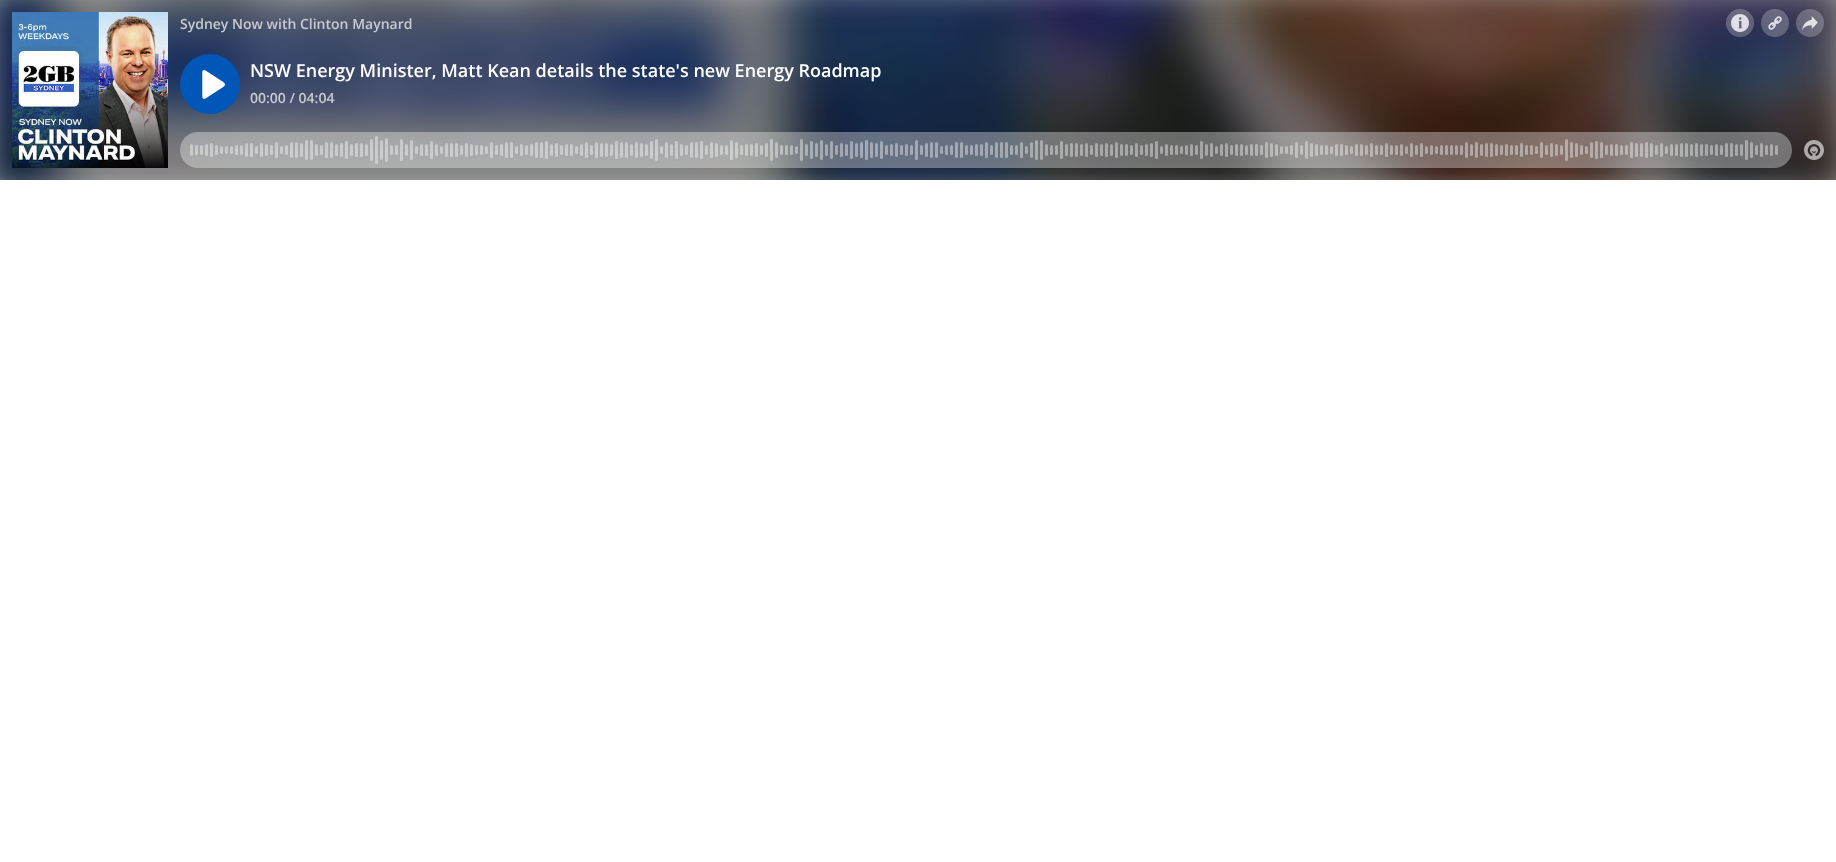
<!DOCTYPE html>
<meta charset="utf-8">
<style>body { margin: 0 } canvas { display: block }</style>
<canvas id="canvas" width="1836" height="862"></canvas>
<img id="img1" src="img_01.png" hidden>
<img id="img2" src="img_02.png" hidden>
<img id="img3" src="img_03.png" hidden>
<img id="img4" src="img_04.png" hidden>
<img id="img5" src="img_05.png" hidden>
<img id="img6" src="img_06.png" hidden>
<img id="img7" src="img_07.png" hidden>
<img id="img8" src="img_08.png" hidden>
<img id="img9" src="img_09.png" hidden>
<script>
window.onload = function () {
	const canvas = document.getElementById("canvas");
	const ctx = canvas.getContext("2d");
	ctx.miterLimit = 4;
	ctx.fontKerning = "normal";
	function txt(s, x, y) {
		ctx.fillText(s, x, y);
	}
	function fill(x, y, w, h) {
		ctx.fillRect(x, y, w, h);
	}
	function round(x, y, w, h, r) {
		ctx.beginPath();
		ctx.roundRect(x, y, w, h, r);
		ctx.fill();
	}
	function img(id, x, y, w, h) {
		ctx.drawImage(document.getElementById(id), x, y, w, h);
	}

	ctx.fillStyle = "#FFFFFF";
	fill(0, 0, 1836, 862);
	img("img1", 0, 0, 1836, 180);
	img("img2", 12, 12, 156, 156);
	ctx.fillStyle = "rgba(255, 255, 255, 0.24)";
	ctx.beginPath();
	ctx.arc(1740, 23, 14, 0, Math.PI * 2);
	ctx.fill();
	img("img3", 1731, 14, 18, 18);
	ctx.beginPath();
	ctx.arc(1775, 23, 14, 0, Math.PI * 2);
	ctx.fill();
	img("img4", 1768, 16, 14, 14);
	ctx.beginPath();
	ctx.arc(1810, 23, 14, 0, Math.PI * 2);
	ctx.fill();
	img("img5", 1802, 16, 16, 14);
	ctx.fillStyle = "#0057B7";
	ctx.beginPath();
	ctx.arc(210, 84, 30, 0, Math.PI * 2);
	ctx.fill();
	img("img6", 202, 70, 23, 29);
	ctx.fillStyle = "rgba(255, 255, 255, 0.35)";
	round(180, 132, 1612, 36, 18);
	img("img7", 190, 136, 1018, 28);
	img("img8", 1210, 139, 568, 22);
	img("img9", 1804, 140, 20, 20);
	ctx.font = "600 14px Open Sans";
	ctx.fillStyle = "#C7CBD2";
	txt("Sydney Now with Clinton Maynard", 180, 29);
	ctx.font = "600 18px Open Sans";
	ctx.fillStyle = "#FFFFFF";
	txt("NSW Energy Minister, Matt Kean details the state's new Energy Roadmap", 250, 77);
	ctx.font = "600 14px Open Sans";
	ctx.fillStyle = "#C7CBD2";
	txt("00:00 / 04:04", 250, 103);
};
</script>
